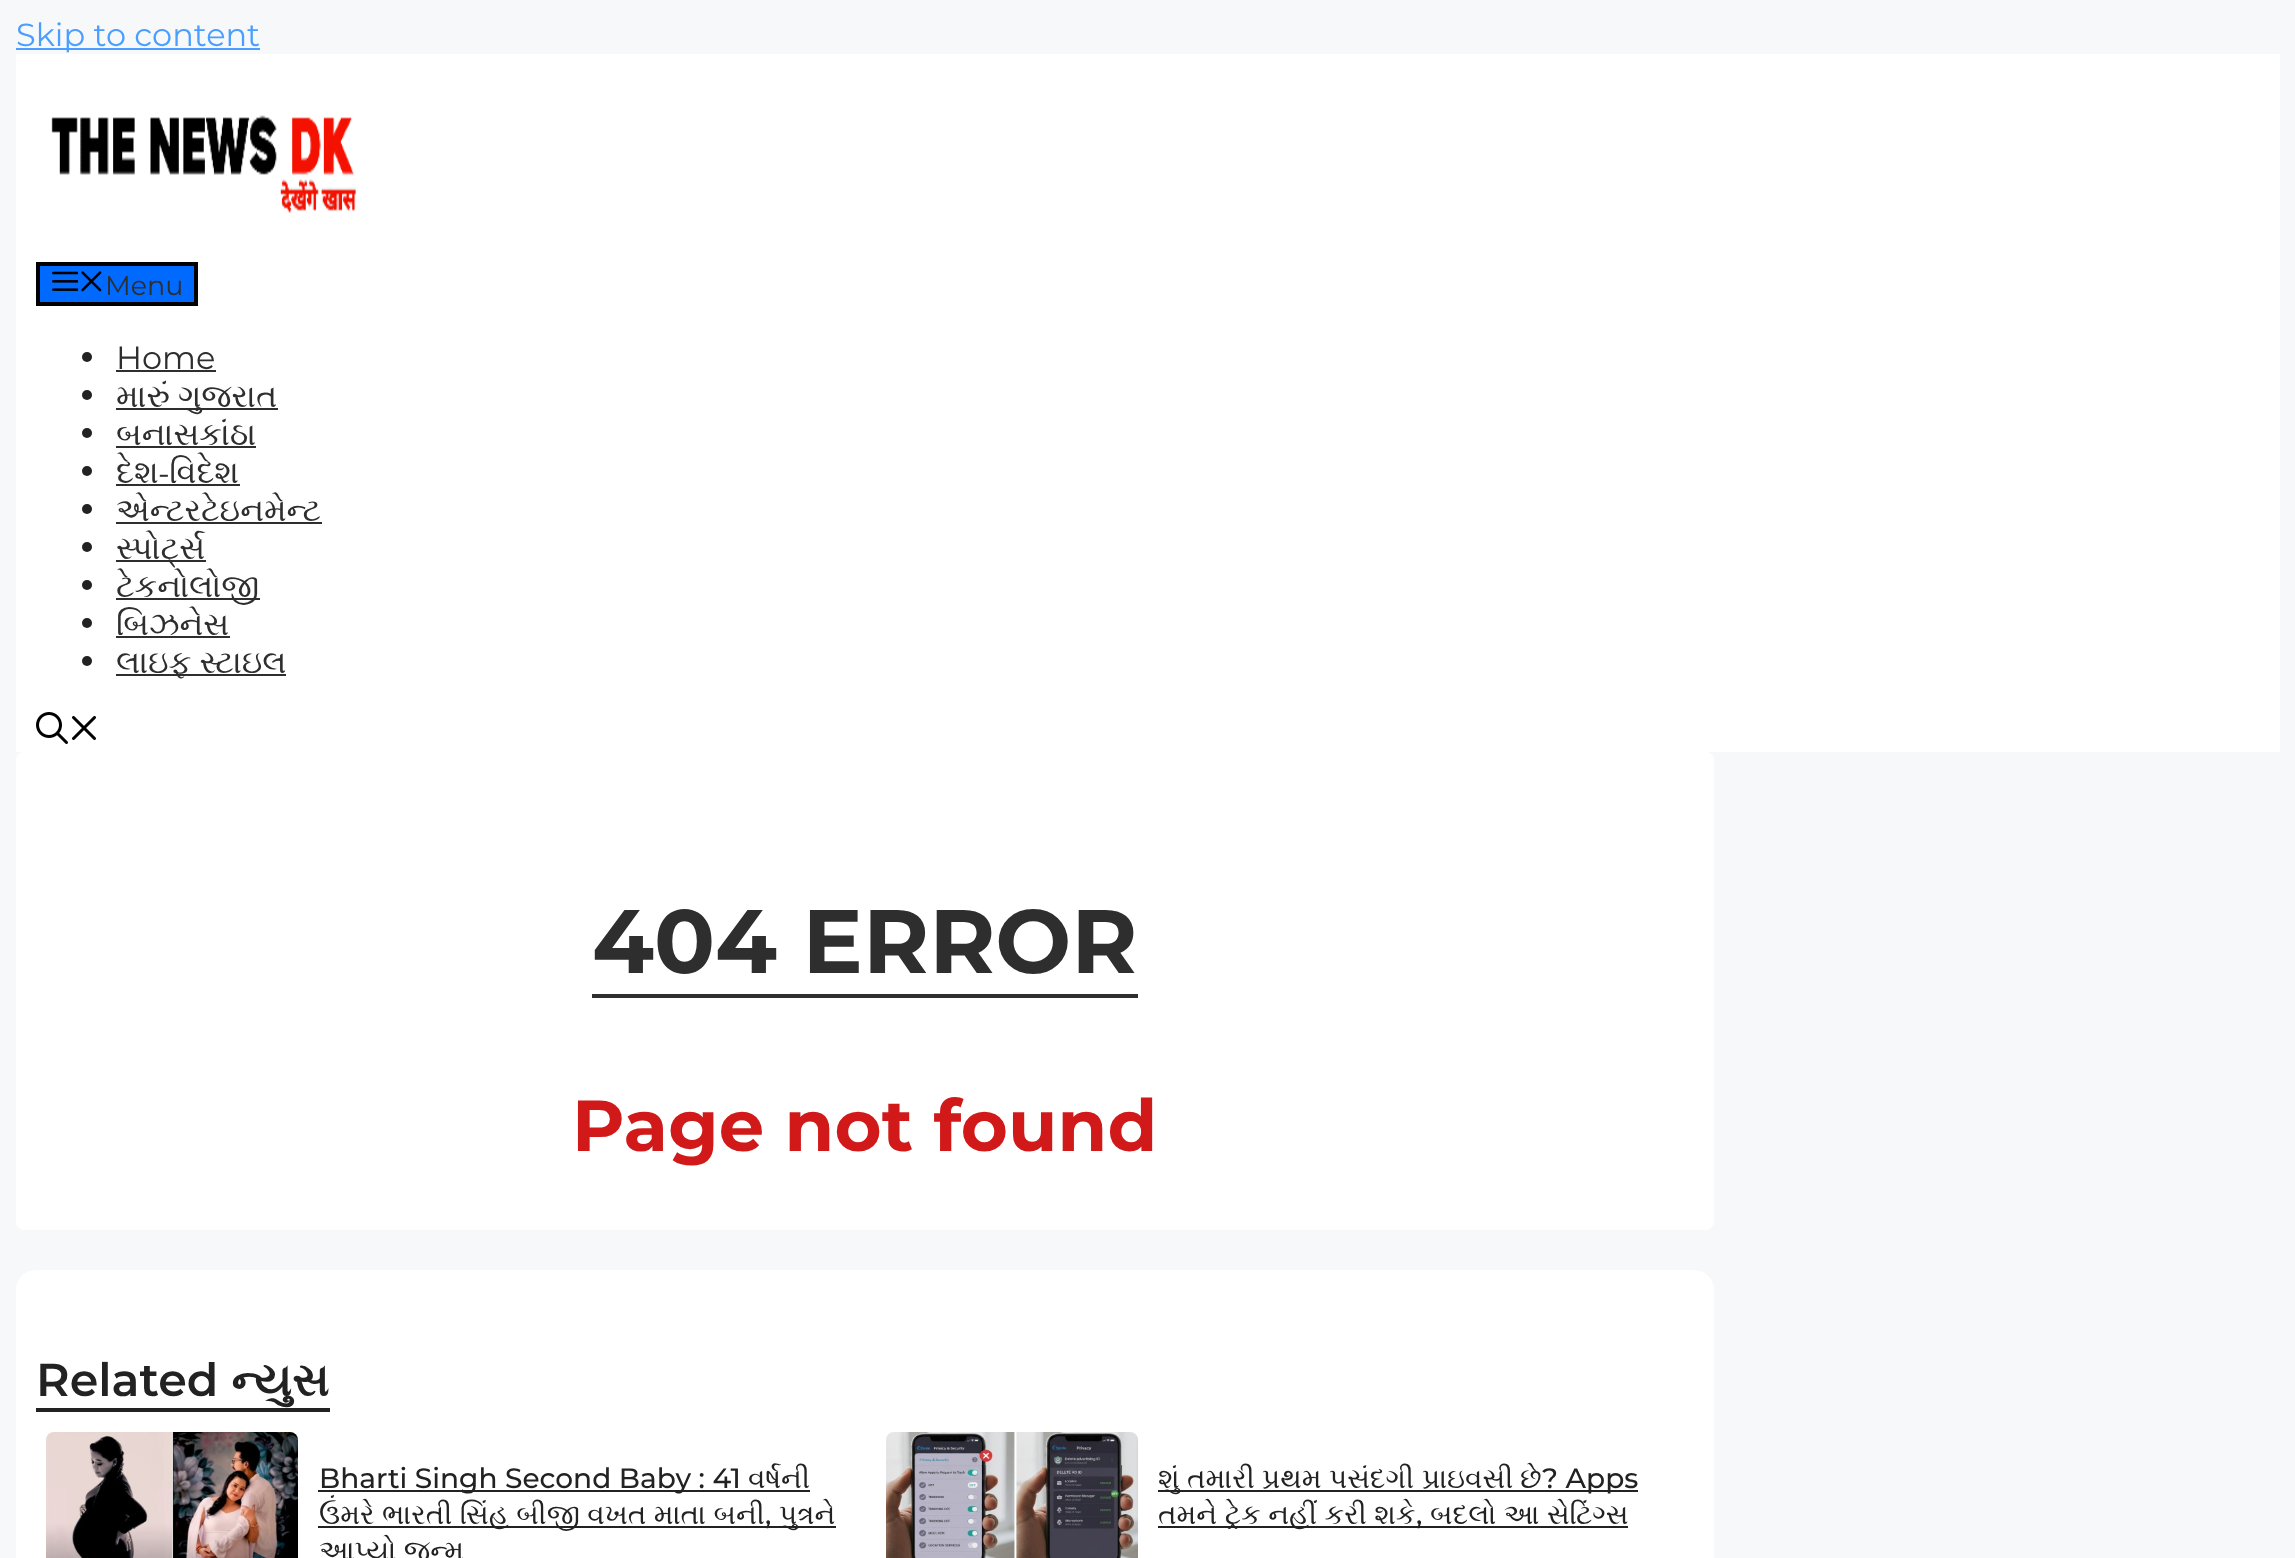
<!DOCTYPE html>
<meta charset="utf-8">
<style>body { margin: 0 } canvas { display: block }</style>
<canvas id="canvas" width="2295" height="1558"></canvas>
<img id="img1" src="img_01.png" hidden>
<img id="img2" src="img_02.png" hidden>
<img id="img3" src="img_03.png" hidden>
<img id="img4" src="img_04.png" hidden>
<img id="img5" src="img_05.png" hidden>
<img id="img6" src="img_06.png" hidden>
<img id="img7" src="img_07.png" hidden>
<script>
window.onload = function () {
	const canvas = document.getElementById("canvas");
	const ctx = canvas.getContext("2d");
	ctx.miterLimit = 4;
	ctx.fontKerning = "normal";
	function txt(s, x, y) {
		ctx.fillText(s, x, y);
	}
	function fill(x, y, w, h) {
		ctx.fillRect(x, y, w, h);
	}
	function round(x, y, w, h, r) {
		ctx.beginPath();
		ctx.roundRect(x, y, w, h, r);
		ctx.fill();
	}
	function img(id, x, y, w, h) {
		ctx.drawImage(document.getElementById(id), x, y, w, h);
	}

	ctx.fillStyle = "#F7F8F9";
	fill(0, 0, 2295, 1558);
	ctx.fillStyle = "#499EFF";
	fill(16, 48, 244, 2);
	ctx.fillStyle = "#FFFFFF";
	fill(16, 54, 2264, 698);
	img("img1", 51, 115, 305, 99);
	ctx.fillStyle = "#006AFE";
	ctx.beginPath();
	ctx.rect(38, 264, 158, 40);
	ctx.fill();
	ctx.strokeStyle = "#000000";
	ctx.lineWidth = 4;
	ctx.stroke();
	img("img2", 52, 271, 26, 20);
	img("img3", 81, 271, 21, 21);
	ctx.fillStyle = "#222222";
	ctx.beginPath();
	ctx.arc(87, 357, 5, 0, Math.PI * 2);
	ctx.fill();
	ctx.fillStyle = "#2E2E2E";
	fill(116, 370, 100, 2);
	ctx.fillStyle = "#222222";
	ctx.beginPath();
	ctx.arc(87, 395, 5, 0, Math.PI * 2);
	ctx.fill();
	ctx.fillStyle = "#2E2E2E";
	fill(116, 408, 162, 2);
	ctx.fillStyle = "#222222";
	ctx.beginPath();
	ctx.arc(87, 433, 5, 0, Math.PI * 2);
	ctx.fill();
	ctx.fillStyle = "#2E2E2E";
	fill(116, 446, 140, 2);
	ctx.fillStyle = "#222222";
	ctx.beginPath();
	ctx.arc(87, 471, 5, 0, Math.PI * 2);
	ctx.fill();
	ctx.fillStyle = "#2E2E2E";
	fill(116, 484, 124, 2);
	ctx.fillStyle = "#222222";
	ctx.beginPath();
	ctx.arc(87, 509, 5, 0, Math.PI * 2);
	ctx.fill();
	ctx.fillStyle = "#2E2E2E";
	fill(116, 522, 206, 2);
	ctx.fillStyle = "#222222";
	ctx.beginPath();
	ctx.arc(87, 547, 5, 0, Math.PI * 2);
	ctx.fill();
	ctx.fillStyle = "#2E2E2E";
	fill(116, 560, 90, 2);
	ctx.fillStyle = "#222222";
	ctx.beginPath();
	ctx.arc(87, 585, 5, 0, Math.PI * 2);
	ctx.fill();
	ctx.fillStyle = "#2E2E2E";
	fill(116, 598, 144, 2);
	ctx.fillStyle = "#222222";
	ctx.beginPath();
	ctx.arc(87, 623, 5, 0, Math.PI * 2);
	ctx.fill();
	ctx.fillStyle = "#2E2E2E";
	fill(116, 636, 114, 2);
	ctx.fillStyle = "#222222";
	ctx.beginPath();
	ctx.arc(87, 661, 5, 0, Math.PI * 2);
	ctx.fill();
	ctx.fillStyle = "#2E2E2E";
	fill(116, 674, 170, 2);
	img("img4", 36, 712, 32, 32);
	img("img5", 72, 716, 24, 24);
	ctx.fillStyle = "#FFFFFF";
	round(16, 752, 1698, 478, 8);
	ctx.fillStyle = "#2E2E2E";
	fill(592, 994, 546, 4);
	ctx.fillStyle = "#FFFFFF";
	round(16, 1270, 1698, 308, 20);
	ctx.fillStyle = "#222222";
	fill(36, 1408, 294, 4);
	img("img6", 46, 1432, 252, 126);
	fill(318, 1490, 492, 2);
	fill(318, 1526, 518, 2);
	img("img7", 886, 1432, 252, 126);
	fill(1158, 1490, 480, 2);
	fill(1158, 1526, 470, 2);
	ctx.font = "32px Montserrat";
	ctx.fillStyle = "#499EFF";
	txt("Skip to content", 16, 46);
	ctx.font = "27px Montserrat";
	ctx.fillStyle = "#2E2E2E";
	txt("Menu", 105, 295);
	ctx.font = "32px Montserrat";
	txt("Home", 116, 369);
	ctx.font = "32px FreeSerif";
	txt("મારું ગુજરાત", 116, 407);
	txt("બનાસકાંઠા", 116, 445);
	txt("દેશ-વિદેશ", 116, 483);
	txt("એન્ટરટેઇનમેન્ટ", 116, 521);
	txt("સ્પોર્ટ્સ", 116, 559);
	txt("ટેકનોલોજી", 116, 597);
	txt("બિઝનેસ", 116, 635);
	txt("લાઇફ સ્ટાઇલ", 116, 673);
	ctx.font = "bold 90px Montserrat";
	txt("404 ERROR", 592, 973);
	ctx.font = "bold 72px Montserrat";
	ctx.fillStyle = "#D11919";
	txt("Page not found", 572, 1151);
	ctx.font = "600 46px Montserrat";
	ctx.fillStyle = "#222222";
	txt("Related", 36, 1396);
	ctx.font = "bold 46px FreeSerif";
	txt("ન્યુસ", 231, 1396);
	ctx.font = "500 28px Montserrat";
	txt("Bharti Singh Second Baby : 41", 319, 1488);
	ctx.font = "28px FreeSerif";
	txt("વર્ષની", 748, 1488);
	ctx.wordSpacing = "0.5px";
	txt("ઉંમરે ભારતી સિંહ બીજી વખત માતા બની", 319, 1524);
	ctx.wordSpacing = "0px";
	ctx.font = "500 28px Montserrat";
	txt(",", 765, 1524);
	ctx.font = "28px FreeSerif";
	txt("પુત્રને", 779, 1524);
	ctx.wordSpacing = "0.5px";
	txt("આપ્યો જન્મ", 319, 1560);
	ctx.wordSpacing = "0px";
	txt("શું", 1158, 1488);
	txt("તમારી", 1187, 1488);
	txt("પ્રથમ", 1262, 1488);
	txt("પસંદગી", 1329, 1488);
	txt("પ્રાઇવસી", 1422, 1488);
	txt("છે", 1520, 1488);
	ctx.font = "500 28px Montserrat";
	txt("? Apps", 1542, 1488);
	ctx.wordSpacing = "0.5px";
	ctx.font = "28px FreeSerif";
	txt("તમને ટ્રેક નહીં કરી શકે", 1158, 1524);
	ctx.wordSpacing = "0px";
	ctx.font = "500 28px Montserrat";
	txt(",", 1416, 1524);
	ctx.wordSpacing = "0.5px";
	ctx.font = "28px FreeSerif";
	txt("બદલો આ સેટિંગ્સ", 1430, 1524);
};
</script>
